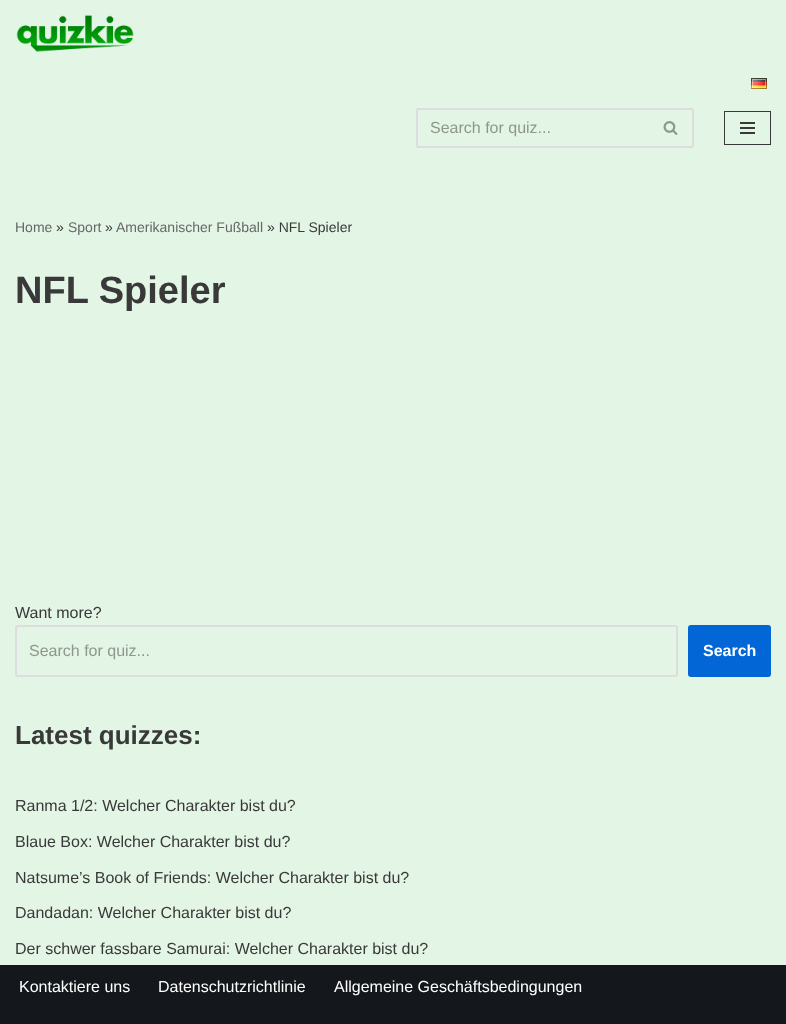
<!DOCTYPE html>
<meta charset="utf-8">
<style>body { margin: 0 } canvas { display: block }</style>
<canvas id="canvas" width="786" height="1024"></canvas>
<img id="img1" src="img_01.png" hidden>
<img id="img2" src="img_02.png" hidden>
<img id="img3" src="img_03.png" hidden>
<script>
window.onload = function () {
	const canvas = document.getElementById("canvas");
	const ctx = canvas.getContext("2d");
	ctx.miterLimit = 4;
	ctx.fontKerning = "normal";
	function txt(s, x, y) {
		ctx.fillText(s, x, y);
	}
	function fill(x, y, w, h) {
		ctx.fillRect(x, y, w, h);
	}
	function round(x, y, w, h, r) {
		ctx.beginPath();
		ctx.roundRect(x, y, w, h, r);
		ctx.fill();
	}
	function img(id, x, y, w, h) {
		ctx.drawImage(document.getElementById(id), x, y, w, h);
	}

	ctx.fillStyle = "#E3F5E4";
	fill(0, 0, 786, 1024);
	img("img1", 16, 15, 118, 37);
	img("img2", 751, 78, 16, 11);
	ctx.fillStyle = "#DDDDDD";
	fill(417, 108, 276, 2);
	fill(417, 146, 232, 2);
	fill(416, 109, 2, 38);
	fill(692, 109, 2, 38);
	fill(649, 146, 44, 2);
	img("img3", 663, 121, 15, 14);
	ctx.strokeStyle = "#393939";
	ctx.strokeRect(724.5, 111.5, 46, 33);
	ctx.fillStyle = "#393939";
	fill(740, 122, 15, 2);
	fill(740, 127, 15, 2);
	fill(740, 132, 15, 2);
	ctx.beginPath();
	ctx.roundRect(16, 626, 661, 50, 2);
	ctx.strokeStyle = "#DDDDDD";
	ctx.lineWidth = 2;
	ctx.stroke();
	ctx.fillStyle = "#0366D6";
	round(688, 625, 83, 52, 3);
	ctx.fillStyle = "#14171C";
	fill(0, 965, 786, 59);
	ctx.font = "16px Liberation Sans";
	ctx.fillStyle = "#8E978F";
	txt("Search for quiz...", 430, 133);
	ctx.font = "14px Liberation Sans";
	ctx.fillStyle = "#676767";
	txt("Home", 15, 232);
	ctx.fillStyle = "#393939";
	txt("»", 56, 232);
	ctx.fillStyle = "#676767";
	txt("Sport", 68, 232);
	ctx.fillStyle = "#393939";
	txt("»", 105, 232);
	ctx.fillStyle = "#676767";
	txt("Amerikanischer Fußball", 116, 232);
	ctx.fillStyle = "#393939";
	txt("» NFL Spieler", 267, 232);
	ctx.font = "bold 38px Liberation Sans";
	txt("NFL Spieler", 15, 303);
	ctx.font = "16px Liberation Sans";
	txt("Want more?", 15, 618);
	ctx.fillStyle = "#8E978F";
	txt("Search for quiz...", 29, 656);
	ctx.font = "bold 16px Liberation Sans";
	ctx.fillStyle = "#FFFFFF";
	txt("Search", 703, 656);
	ctx.font = "bold 26px Liberation Sans";
	ctx.fillStyle = "#393939";
	txt("Latest quizzes:", 15, 744);
	ctx.font = "16px Liberation Sans";
	txt("Ranma 1/2: Welcher Charakter bist du?", 15, 811);
	txt("Blaue Box: Welcher Charakter bist du?", 15, 847);
	txt("Natsume’s Book of Friends: Welcher Charakter bist du?", 15, 883);
	txt("Dandadan: Welcher Charakter bist du?", 15, 918);
	txt("Der schwer fassbare Samurai: Welcher Charakter bist du?", 15, 954);
	ctx.fillStyle = "#FFFFFF";
	txt("Kontaktiere uns", 19, 992);
	txt("Datenschutzrichtlinie", 158, 992);
	txt("Allgemeine Geschäftsbedingungen", 334, 992);
};
</script>
